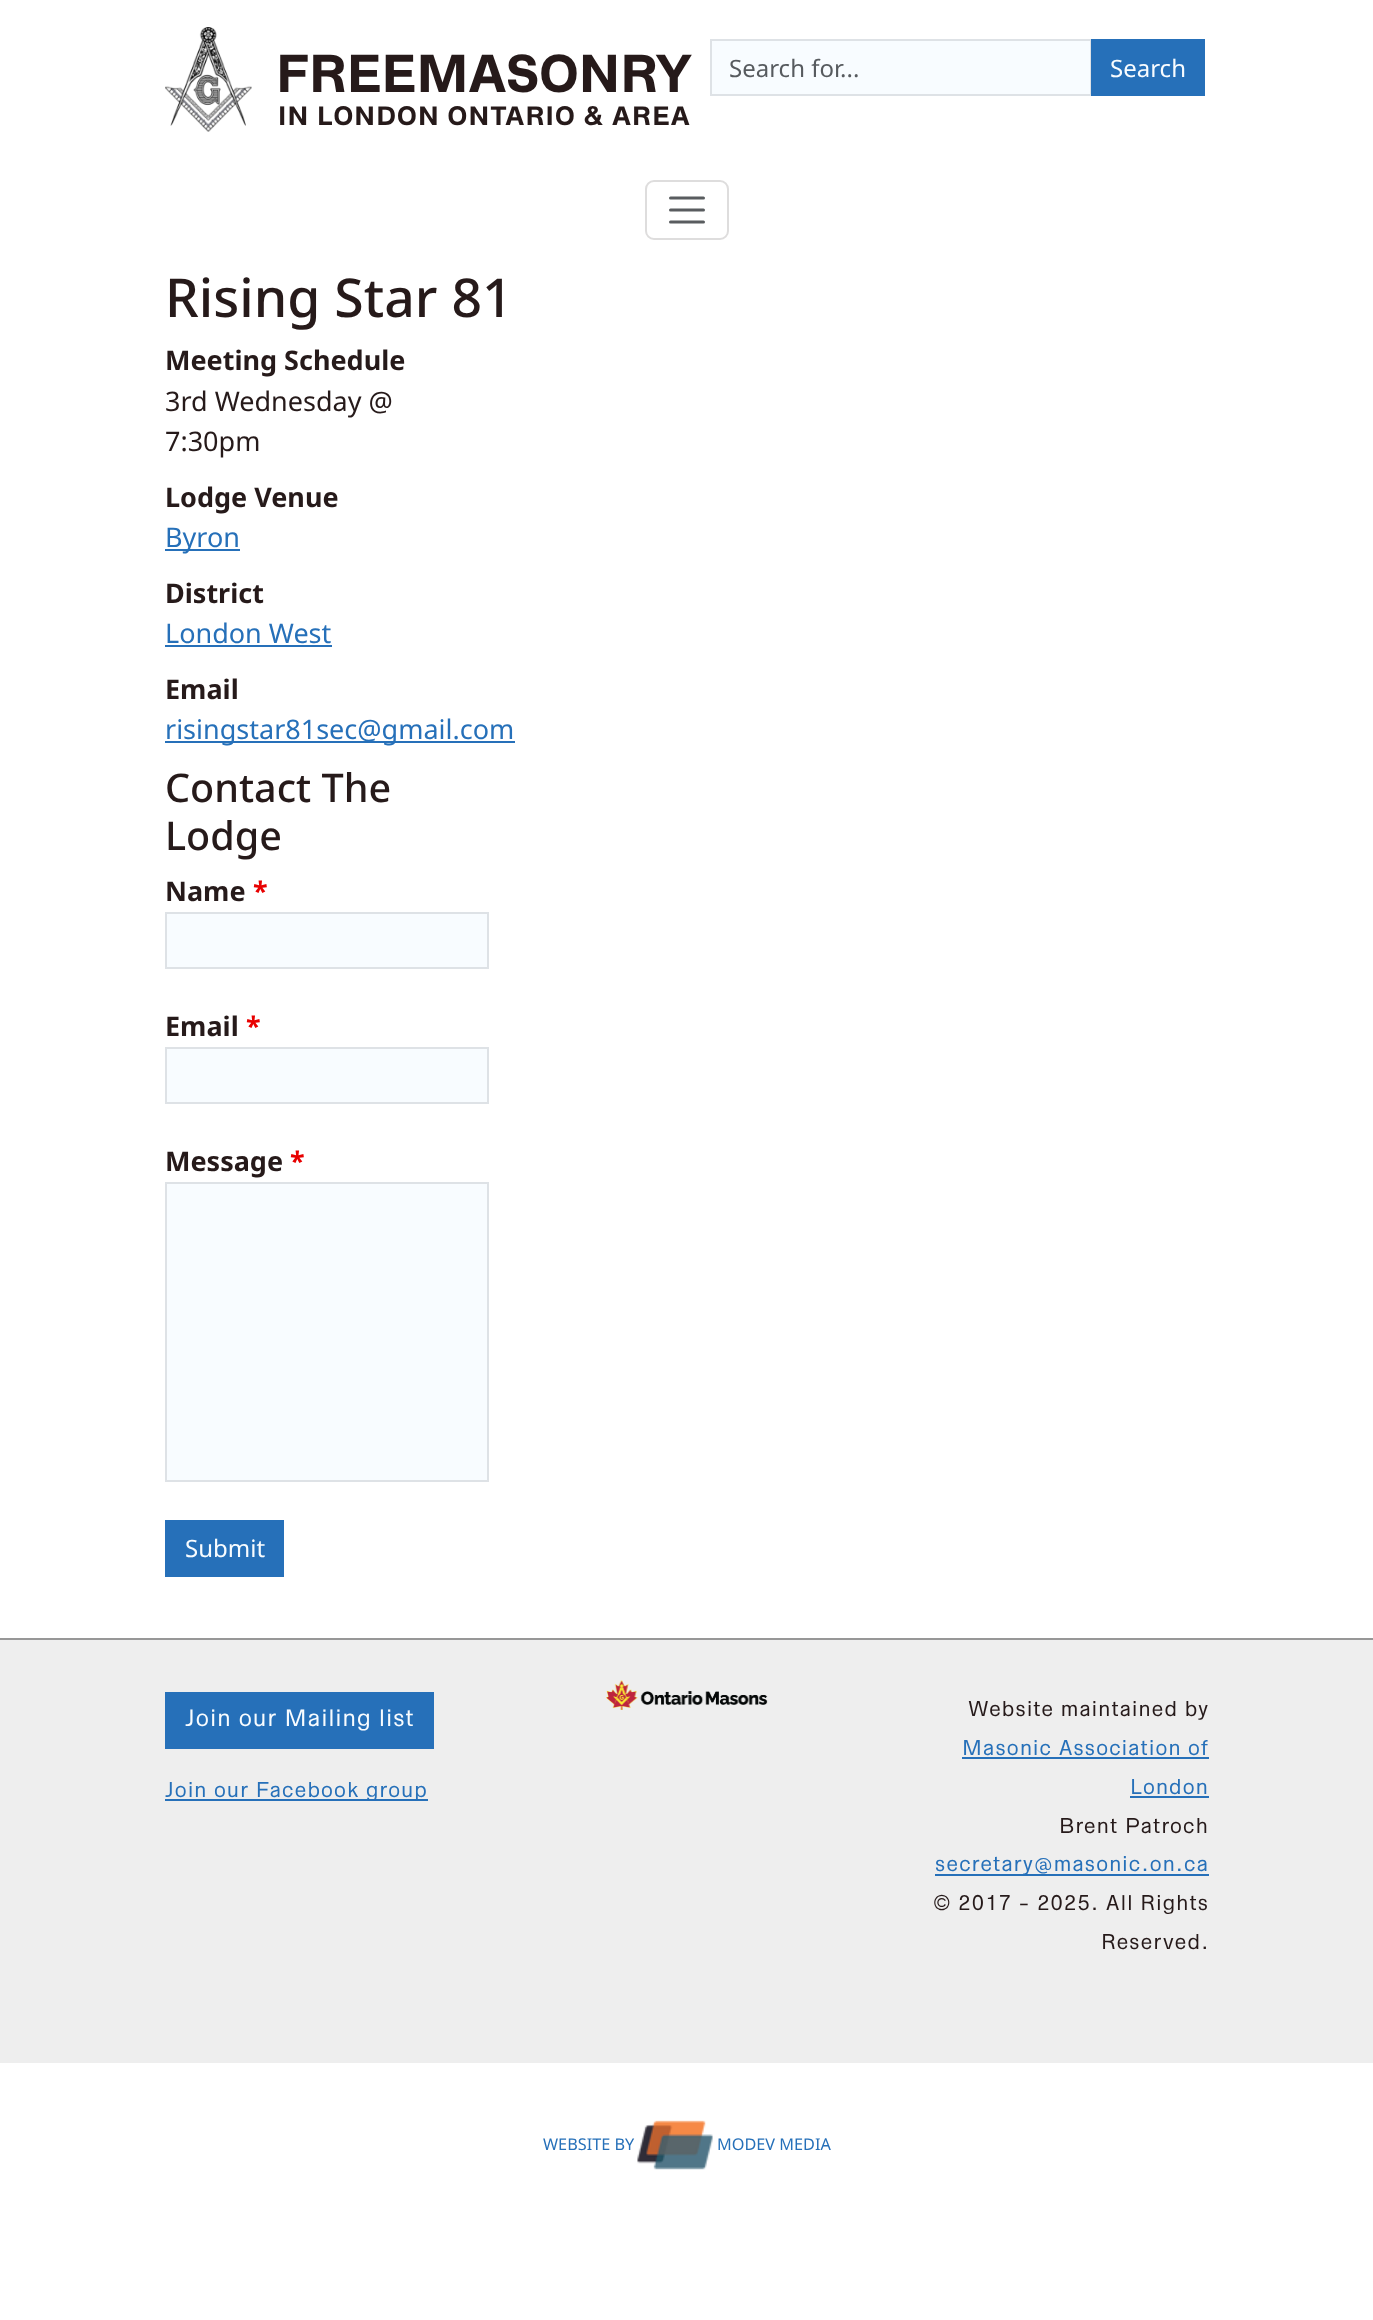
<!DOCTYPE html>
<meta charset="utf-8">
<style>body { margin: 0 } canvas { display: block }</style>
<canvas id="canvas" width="1373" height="2320"></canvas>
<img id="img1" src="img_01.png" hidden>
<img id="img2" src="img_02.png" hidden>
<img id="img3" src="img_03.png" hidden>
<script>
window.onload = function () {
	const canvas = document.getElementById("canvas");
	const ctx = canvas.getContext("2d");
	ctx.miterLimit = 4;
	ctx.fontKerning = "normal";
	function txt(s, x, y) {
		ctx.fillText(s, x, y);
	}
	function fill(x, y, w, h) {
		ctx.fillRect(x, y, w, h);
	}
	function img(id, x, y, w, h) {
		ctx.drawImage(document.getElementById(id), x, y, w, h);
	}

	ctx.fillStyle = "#FFFFFF";
	fill(0, 0, 1373, 2320);
	img("img1", 165, 27, 87, 105);
	ctx.fillStyle = "#F8FCFF";
	ctx.beginPath();
	ctx.rect(711, 40, 380, 55);
	ctx.fill();
	ctx.strokeStyle = "#DEE2E6";
	ctx.lineWidth = 2;
	ctx.stroke();
	ctx.fillStyle = "#2670B9";
	fill(1091, 39, 114, 57);
	ctx.beginPath();
	ctx.roundRect(646, 181, 82, 58, 8);
	ctx.strokeStyle = "#DEDDDD";
	ctx.stroke();
	ctx.beginPath();
	ctx.moveTo(670.5, 198);
	ctx.lineTo(703.5, 198);
	ctx.moveTo(670.5, 210);
	ctx.lineTo(703.5, 210);
	ctx.moveTo(670.5, 222);
	ctx.lineTo(703.5, 222);
	ctx.strokeStyle = "#595C5F";
	ctx.lineWidth = 3;
	ctx.lineCap = "round";
	ctx.stroke();
	fill(165, 549, 75, 2);
	fill(165, 645, 167, 2);
	fill(165, 741, 350, 2);
	ctx.fillStyle = "#F8FCFF";
	ctx.beginPath();
	ctx.rect(166, 913, 322, 55);
	ctx.fill();
	ctx.strokeStyle = "#DEE2E6";
	ctx.lineWidth = 2;
	ctx.stroke();
	ctx.beginPath();
	ctx.rect(166, 1048, 322, 55);
	ctx.fill();
	ctx.stroke();
	ctx.beginPath();
	ctx.rect(166, 1183, 322, 298);
	ctx.fill();
	ctx.stroke();
	ctx.fillStyle = "#2670B9";
	fill(165, 1520, 119, 57);
	ctx.fillStyle = "#EEEEEE";
	fill(0, 1640, 1373, 423);
	ctx.fillStyle = "#979797";
	fill(0, 1638, 1373, 2);
	img("img2", 606, 1680, 162, 30);
	ctx.fillStyle = "#2670B9";
	fill(165, 1692, 269, 57);
	fill(165, 1799, 263, 2);
	fill(962, 1757, 247, 2);
	fill(1130, 1796, 79, 2);
	fill(935, 1874, 274, 2);
	img("img3", 637, 2120, 76, 50);
	ctx.font = "bold 54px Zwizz";
	ctx.fillStyle = "#261A1A";
	txt("FREEMASONRY", 276, 92);
	ctx.letterSpacing = "1.2px";
	ctx.font = "bold 27px Zwizz";
	txt("IN LONDON ONTARIO & AREA", 278, 125);
	ctx.letterSpacing = "0px";
	ctx.font = "24px Noto Sans";
	ctx.fillStyle = "#575B5F";
	txt("Search for...", 729, 77);
	ctx.fillStyle = "#F8FCFF";
	txt("Search", 1110, 77);
	ctx.font = "500 53.5px Noto Sans";
	ctx.fillStyle = "#261A1A";
	txt("Rising Star 81", 165, 317);
	ctx.font = "bold 27px Noto Sans";
	txt("Meeting Schedule", 165, 370);
	ctx.font = "27px Noto Sans";
	txt("3rd Wednesday @", 165, 411);
	txt("7:30pm", 165, 451);
	ctx.font = "bold 27px Noto Sans";
	txt("Lodge Venue", 165, 507);
	ctx.font = "27px Noto Sans";
	ctx.fillStyle = "#2670B9";
	txt("Byron", 165, 547);
	ctx.font = "bold 27px Noto Sans";
	ctx.fillStyle = "#261A1A";
	txt("District", 165, 603);
	ctx.font = "27px Noto Sans";
	ctx.fillStyle = "#2670B9";
	txt("London West", 165, 643);
	ctx.font = "bold 27px Noto Sans";
	ctx.fillStyle = "#261A1A";
	txt("Email", 165, 699);
	ctx.font = "27px Noto Sans";
	ctx.fillStyle = "#2670B9";
	txt("risingstar81sec@gmail.com", 165, 739);
	ctx.font = "500 39.5px Noto Sans";
	ctx.fillStyle = "#261A1A";
	txt("Contact The", 165, 802);
	txt("Lodge", 165, 850);
	ctx.font = "bold 27px Noto Sans";
	txt("Name", 165, 901);
	ctx.fillStyle = "#E80000";
	txt("*", 253, 901);
	ctx.fillStyle = "#261A1A";
	txt("Email", 165, 1036);
	ctx.fillStyle = "#E80000";
	txt("*", 246, 1036);
	ctx.fillStyle = "#261A1A";
	txt("Message", 165, 1171);
	ctx.fillStyle = "#E80000";
	txt("*", 290, 1171);
	ctx.font = "24px Noto Sans";
	ctx.fillStyle = "#F8FCFF";
	txt("Submit", 185, 1557);
	ctx.letterSpacing = "1.2px";
	ctx.font = "24px Zwizz";
	txt("Join our Mailing list", 185, 1726);
	ctx.font = "21.6px Zwizz";
	ctx.fillStyle = "#2670B9";
	txt("Join our Facebook group", 165, 1797);
	ctx.fillStyle = "#261A1A";
	txt("Website maintained by", 968, 1716);
	ctx.fillStyle = "#2670B9";
	txt("Masonic Association of", 962, 1755);
	txt("London", 1130, 1794);
	ctx.fillStyle = "#261A1A";
	txt("Brent Patroch", 1059, 1833);
	ctx.fillStyle = "#2670B9";
	txt("secretary@masonic.on.ca", 935, 1871);
	ctx.fillStyle = "#261A1A";
	txt("© 2017 - 2025. All Rights", 933, 1910);
	txt("Reserved.", 1101, 1949);
	ctx.letterSpacing = "0px";
	ctx.font = "16.25px Noto Sans";
	ctx.fillStyle = "#2670B9";
	txt("WEBSITE BY", 543, 2150);
	txt("MODEV MEDIA", 717, 2150);
};
</script>
